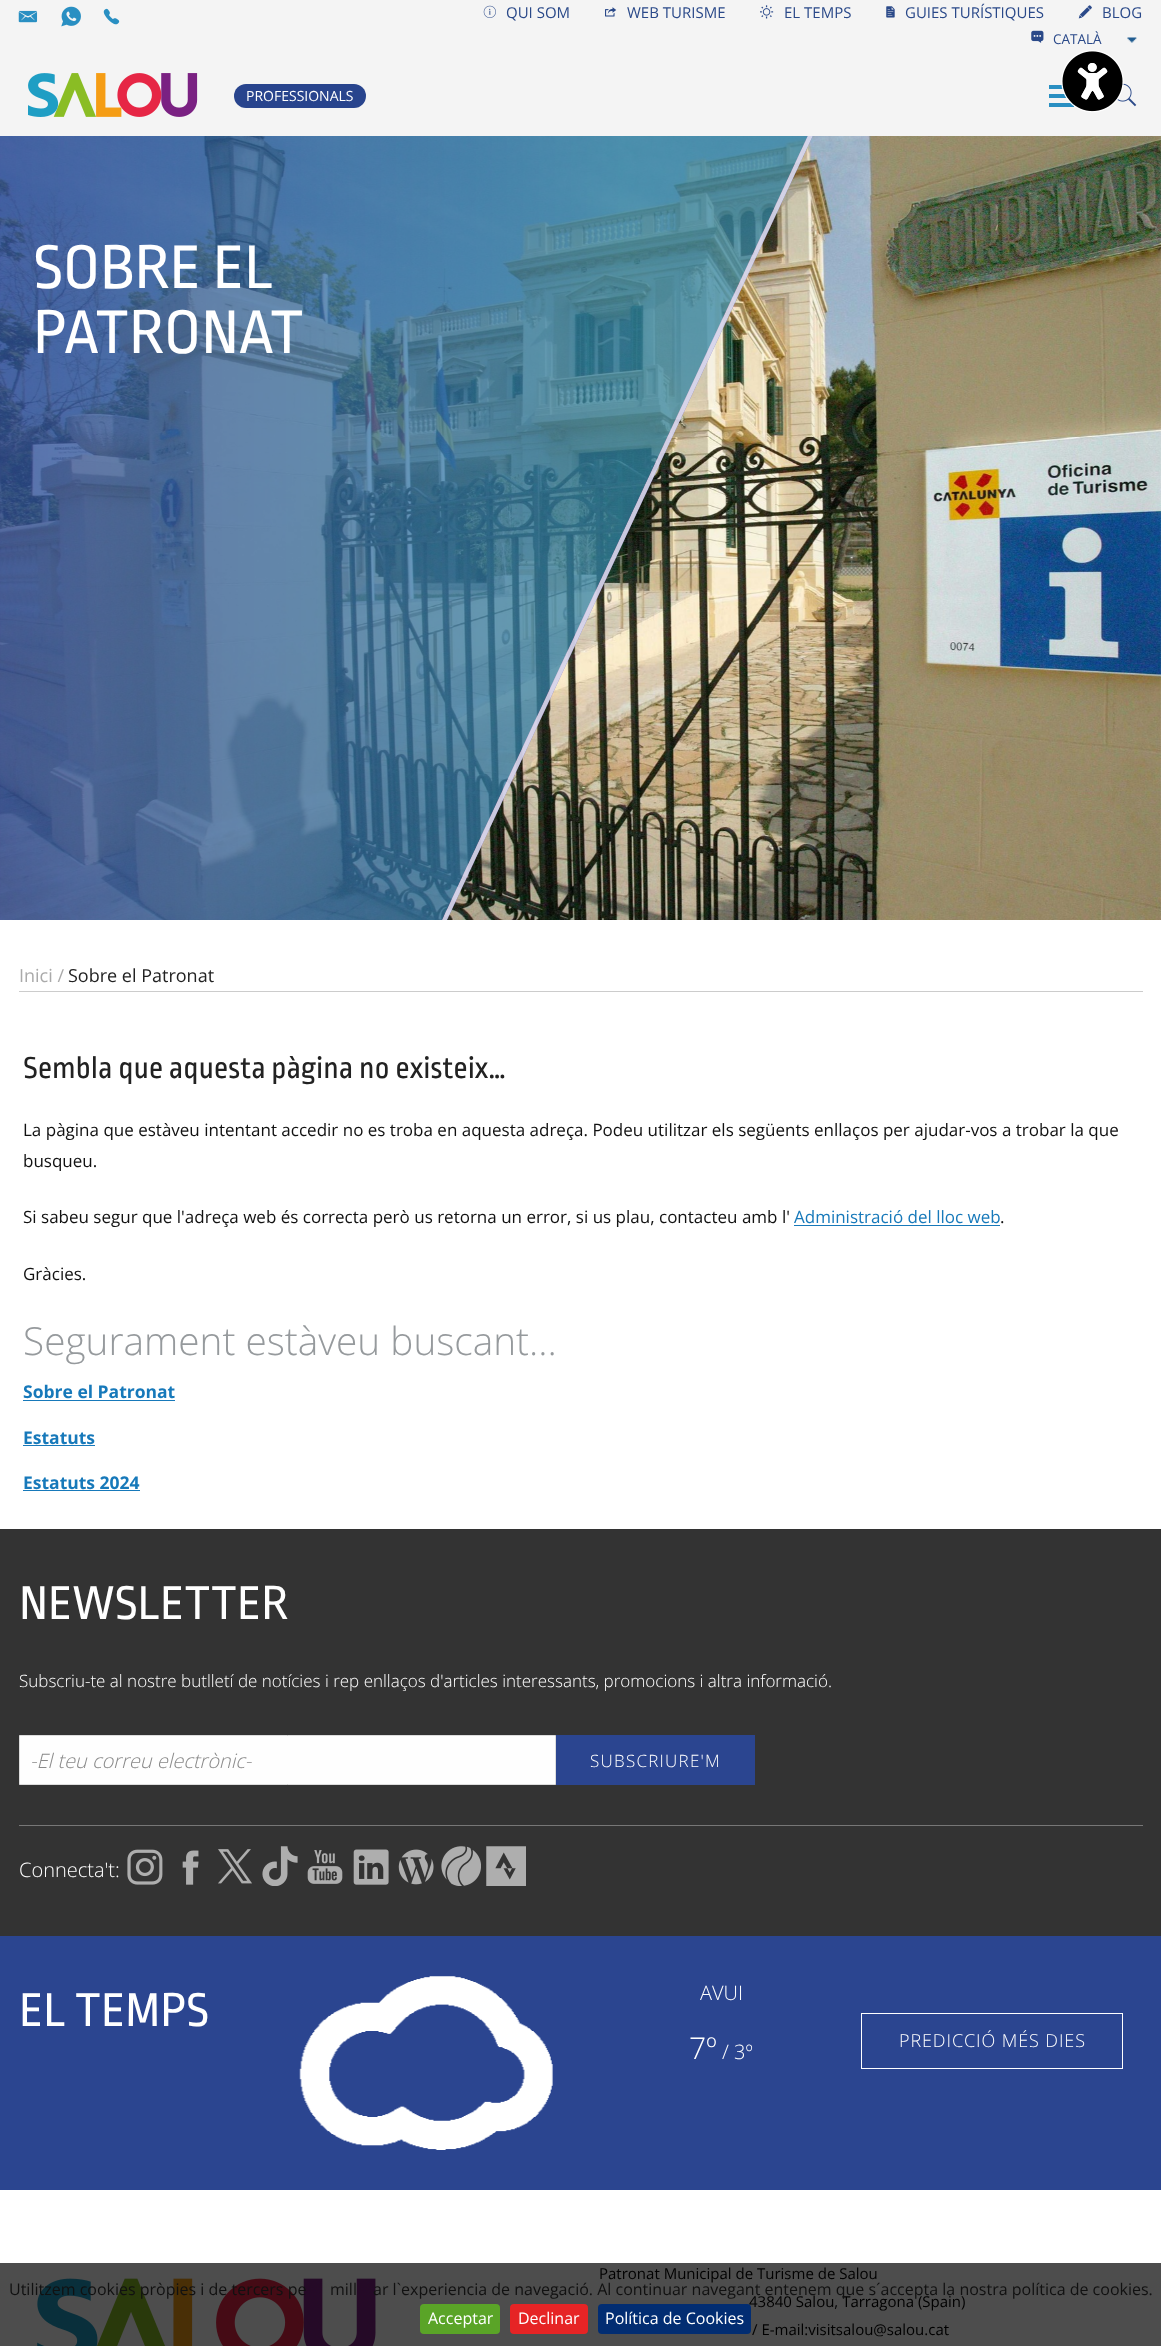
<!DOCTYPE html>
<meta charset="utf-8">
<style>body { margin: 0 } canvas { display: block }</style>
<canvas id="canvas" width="1161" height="2346"></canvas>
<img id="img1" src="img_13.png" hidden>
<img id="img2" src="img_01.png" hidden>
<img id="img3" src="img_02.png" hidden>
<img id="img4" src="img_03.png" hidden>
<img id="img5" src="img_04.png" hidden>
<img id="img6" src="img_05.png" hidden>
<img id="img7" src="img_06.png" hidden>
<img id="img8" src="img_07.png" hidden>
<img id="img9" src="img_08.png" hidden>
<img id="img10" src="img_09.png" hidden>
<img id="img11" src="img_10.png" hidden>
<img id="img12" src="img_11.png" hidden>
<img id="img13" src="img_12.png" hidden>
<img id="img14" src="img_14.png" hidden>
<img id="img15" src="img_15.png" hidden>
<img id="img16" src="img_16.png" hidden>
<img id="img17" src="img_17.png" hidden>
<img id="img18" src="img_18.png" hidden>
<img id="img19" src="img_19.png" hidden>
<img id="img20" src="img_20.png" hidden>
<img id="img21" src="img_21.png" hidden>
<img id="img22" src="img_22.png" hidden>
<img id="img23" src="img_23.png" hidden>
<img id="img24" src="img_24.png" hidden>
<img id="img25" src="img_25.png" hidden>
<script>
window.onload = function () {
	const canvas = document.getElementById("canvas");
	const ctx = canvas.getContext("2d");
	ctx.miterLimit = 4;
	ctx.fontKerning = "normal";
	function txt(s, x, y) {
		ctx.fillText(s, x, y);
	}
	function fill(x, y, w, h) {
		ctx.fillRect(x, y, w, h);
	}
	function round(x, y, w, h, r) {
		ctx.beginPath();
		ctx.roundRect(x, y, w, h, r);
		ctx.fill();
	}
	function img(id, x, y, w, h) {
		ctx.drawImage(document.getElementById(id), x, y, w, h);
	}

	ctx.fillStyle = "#FFFFFF";
	fill(0, 0, 1161, 2346);
	ctx.fillStyle = "#4D4D4D";
	fill(0, 2263, 1161, 83);
	img("img1", 0, 136, 1161, 784);
	ctx.fillStyle = "rgba(255, 255, 255, 0.75)";
	ctx.beginPath();
	ctx.moveTo(825, 99);
	ctx.lineTo(830, 99);
	ctx.lineTo(447, 920);
	ctx.lineTo(442, 920);
	ctx.closePath();
	ctx.fill();
	ctx.fillStyle = "#F4F4F4";
	fill(0, 0, 1161, 136);
	img("img2", 18, 10, 20, 13);
	img("img3", 61, 6, 20, 21);
	img("img4", 103, 8, 17, 17);
	img("img5", 483, 5, 13, 13);
	img("img6", 605, 7, 12, 10);
	img("img7", 760, 5, 14, 14);
	img("img8", 886, 6, 9, 12);
	img("img9", 1078, 5, 14, 14);
	img("img10", 1031, 30, 13, 13);
	img("img11", 1127, 37, 10, 6);
	img("img12", 28, 73, 170, 44);
	ctx.fillStyle = "#28448D";
	round(234, 84, 132, 24, 12);
	ctx.fillStyle = "#298FC2";
	fill(1049, 103, 25, 4);
	fill(1049, 94, 25, 4);
	fill(1049, 85, 15, 4);
	img("img13", 1116, 83, 21, 24);
	ctx.fillStyle = "#CCCCCC";
	fill(19, 991, 1124, 1);
	ctx.fillStyle = "#1779BA";
	fill(794, 1225, 206, 1);
	fill(23, 1400, 152, 1);
	fill(23, 1445, 72, 1);
	fill(23, 1490, 117, 1);
	ctx.fillStyle = "#333333";
	fill(0, 1529, 1161, 407);
	ctx.fillStyle = "#FEFEFE";
	ctx.beginPath();
	ctx.rect(19.5, 1735.5, 536, 49);
	ctx.fill();
	ctx.strokeStyle = "#DDDDDD";
	ctx.stroke();
	ctx.fillStyle = "#2B4590";
	fill(556, 1735, 199, 50);
	ctx.fillStyle = "#777777";
	fill(19, 1825, 1124, 1);
	img("img14", 127, 1849, 36, 36);
	img("img15", 182, 1850, 17, 35);
	img("img16", 218, 1849, 34, 35);
	img("img17", 262, 1846, 36, 40);
	img("img18", 307, 1850, 36, 34);
	img("img19", 353, 1849, 36, 36);
	img("img20", 398, 1849, 36, 36);
	img("img21", 441, 1846, 40, 40);
	img("img22", 486, 1846, 40, 40);
	ctx.fillStyle = "#2B4590";
	fill(0, 1936, 1161, 254);
	img("img23", 299, 1976, 254, 174);
	ctx.strokeStyle = "#FFFFFF";
	ctx.strokeRect(861.5, 2013.5, 261, 55);
	img("img24", 37, 2278, 339, 68);
	img("img25", 1061, 50, 63, 63);
	ctx.fillStyle = "#5AA427";
	round(420, 2304, 80, 30, 4);
	ctx.fillStyle = "#E62425";
	round(510, 2304, 78, 30, 4);
	ctx.font = "15px Open Sans";
	ctx.fillStyle = "#2A4989";
	txt("QUI SOM", 506, 18);
	txt("WEB TURISME", 627, 18);
	txt("EL TEMPS", 784, 18);
	txt("GUIES TURÍSTIQUES", 905, 18);
	txt("BLOG", 1102, 18);
	ctx.font = "13.5px Open Sans";
	txt("CATALÀ", 1053, 44);
	ctx.font = "14px Open Sans";
	ctx.fillStyle = "#FFFFFF";
	txt("PROFESSIONALS", 246, 101);
	ctx.font = "65px Ropa Sans";
	txt("SOBRE EL", 33, 288);
	txt("PATRONAT", 33, 353);
	ctx.font = "18px Open Sans";
	ctx.fillStyle = "#AAAAAA";
	txt("Inici /", 19, 982);
	ctx.fillStyle = "#222222";
	txt("Sobre el Patronat", 68, 982);
	ctx.font = "32px Ropa Sans";
	txt("Sembla que aquesta pàgina no existeix…", 23, 1078);
	ctx.font = "17px Open Sans";
	ctx.fillStyle = "#111111";
	txt("La pàgina que estàveu intentant accedir no es troba en aquesta adreça. Podeu utilitzar els següents enllaços per ajudar-vos a trobar la que", 23, 1136);
	txt("busqueu.", 23, 1167);
	txt("Si sabeu segur que l'adreça web és correcta però us retorna un error, si us plau, contacteu amb l'", 23, 1223);
	ctx.fillStyle = "#1779BA";
	txt("Administració del lloc web", 794, 1223);
	ctx.fillStyle = "#111111";
	txt(".", 1000, 1223);
	txt("Gràcies.", 23, 1280);
	ctx.font = "300 38.75px Open Sans";
	ctx.fillStyle = "#969A9D";
	txt("Segurament estàveu buscant…", 23, 1355);
	ctx.font = "bold 17.5px Open Sans";
	ctx.fillStyle = "#1779BA";
	txt("Sobre el Patronat", 23, 1398);
	txt("Estatuts", 23, 1444);
	txt("Estatuts 2024", 23, 1489);
	ctx.font = "50px Ropa Sans";
	ctx.fillStyle = "#FFFFFF";
	txt("NEWSLETTER", 19, 1619);
	ctx.font = "300 17px Open Sans";
	txt("Subscriu-te al nostre butlletí de notícies i rep enllaços d'articles interessants, promocions i altra informació.", 19, 1687);
	ctx.font = "italic 300 20px Open Sans";
	ctx.fillStyle = "#898989";
	txt("-El teu correu electrònic-", 30, 1768);
	ctx.letterSpacing = "1.25px";
	ctx.font = "300 17px Open Sans";
	ctx.fillStyle = "#FFFFFF";
	txt("SUBSCRIURE'M", 590, 1767);
	ctx.letterSpacing = "0px";
	ctx.font = "300 20px Open Sans";
	txt("Connecta't:", 19, 1877);
	ctx.font = "50px Ropa Sans";
	txt("EL TEMPS", 19, 2026);
	ctx.font = "300 20px Open Sans";
	txt("AVUI", 700, 2000);
	ctx.font = "300 30px Open Sans";
	txt("7º", 689, 2059);
	ctx.font = "300 20px Open Sans";
	txt("/ 3º", 722, 2059);
	ctx.letterSpacing = "0.9px";
	ctx.font = "300 18px Open Sans";
	txt("PREDICCIÓ MÉS DIES", 899, 2047);
	ctx.letterSpacing = "0px";
	ctx.font = "15px Open Sans";
	ctx.fillStyle = "#000000";
	txt("Patronat Municipal de Turisme de Salou", 599, 2279);
	txt("43840 Salou, Tarragona (Spain)", 749, 2307);
	txt("/ E-mail:visitsalou@salou.cat", 752, 2335);
	ctx.font = "16px Open Sans";
	ctx.fillStyle = "#111111";
	txt("Utilitzem cookies pròpies i de tercers pe", 9, 2295);
	txt("mill", 330, 2295);
	txt("ar l`experiencia de navegació. Al continuar navegant entenem que s´accepta la nostra política de cookies.", 373, 2295);
	ctx.fillStyle = "#FFFFFF";
	txt("Acceptar", 428, 2324);
	txt("Declinar", 518, 2324);
	ctx.fillStyle = "#022D72";
	round(598, 2304, 153, 30, 4);
	ctx.fillStyle = "#FFFFFF";
	txt("Política de Cookies", 605, 2324);
};
</script>
